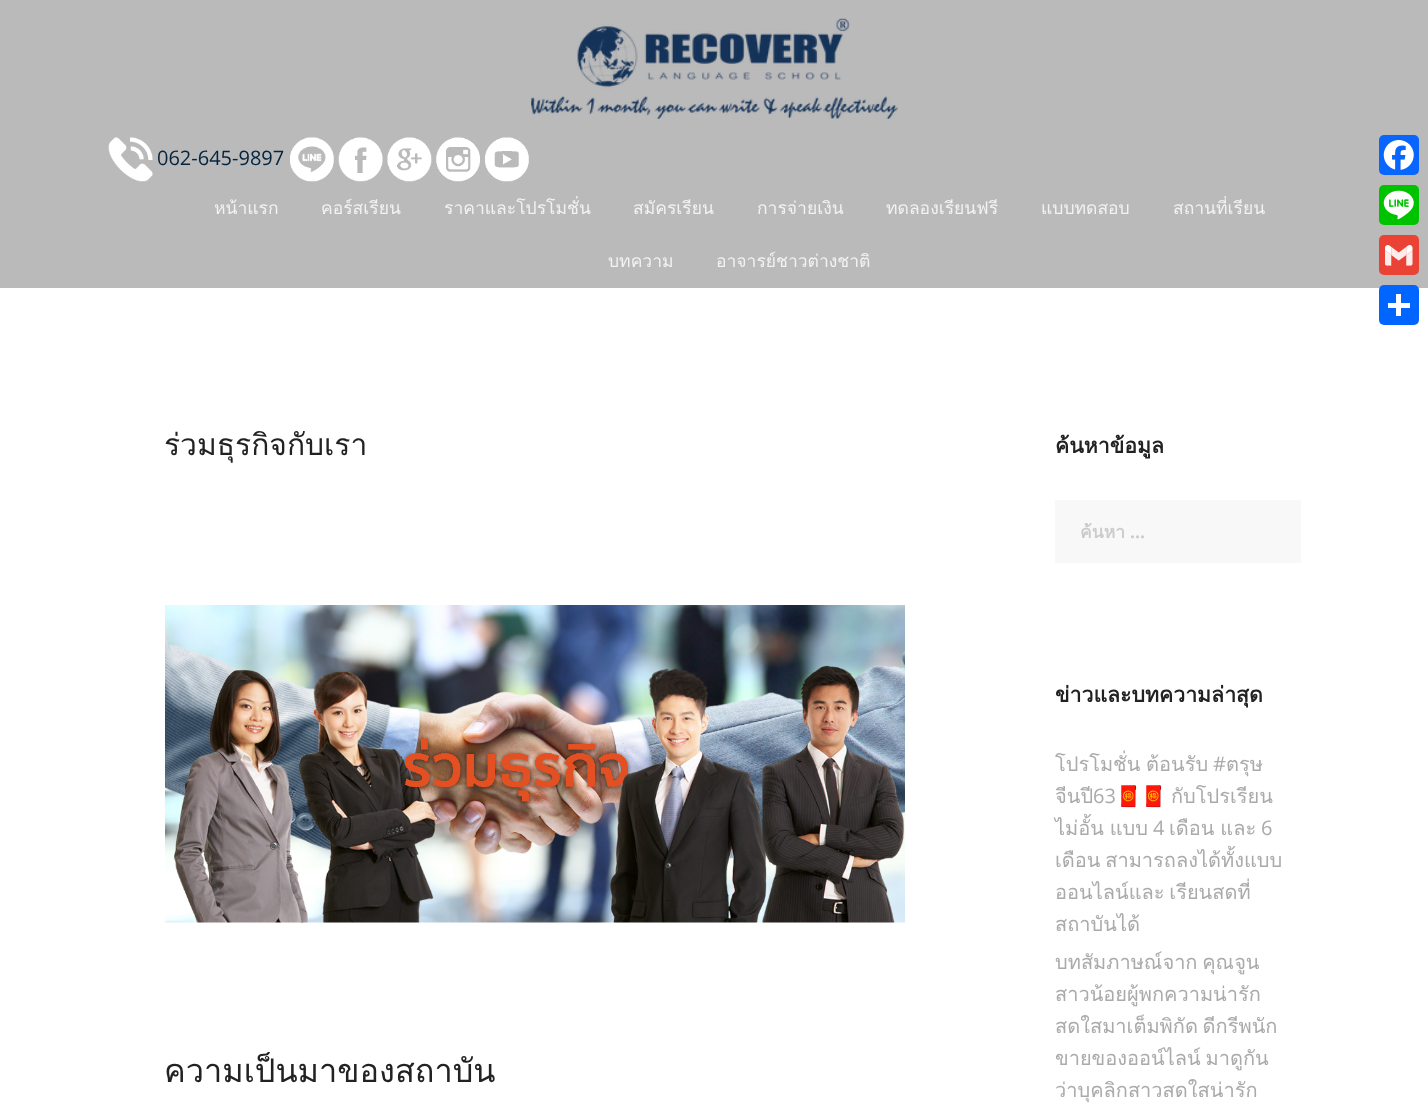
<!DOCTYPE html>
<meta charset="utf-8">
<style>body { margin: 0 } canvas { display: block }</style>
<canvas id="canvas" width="1428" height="1108"></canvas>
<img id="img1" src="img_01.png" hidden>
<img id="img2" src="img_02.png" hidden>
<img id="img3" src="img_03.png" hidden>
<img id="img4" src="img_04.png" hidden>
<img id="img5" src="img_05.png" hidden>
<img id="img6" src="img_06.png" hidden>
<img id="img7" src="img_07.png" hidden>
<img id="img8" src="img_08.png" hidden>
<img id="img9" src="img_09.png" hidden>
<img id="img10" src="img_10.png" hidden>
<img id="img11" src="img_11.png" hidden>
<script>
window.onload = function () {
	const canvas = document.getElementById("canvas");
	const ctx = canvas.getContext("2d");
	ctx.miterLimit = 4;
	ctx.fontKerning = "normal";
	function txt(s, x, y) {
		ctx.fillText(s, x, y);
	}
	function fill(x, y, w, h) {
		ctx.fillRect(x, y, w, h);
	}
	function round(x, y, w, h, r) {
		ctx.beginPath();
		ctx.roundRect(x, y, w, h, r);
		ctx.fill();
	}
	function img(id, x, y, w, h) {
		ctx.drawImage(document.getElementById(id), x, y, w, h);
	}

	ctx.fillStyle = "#FFFFFF";
	fill(0, 0, 1428, 1108);
	ctx.fillStyle = "#BABABA";
	fill(0, 0, 1428, 288);
	img("img1", 531, 18, 367, 101);
	img("img2", 108, 137, 45, 45);
	img("img3", 290, 137, 44, 45);
	img("img4", 338, 137, 45, 45);
	img("img5", 387, 137, 45, 45);
	img("img6", 436, 137, 44, 45);
	img("img7", 485, 137, 44, 45);
	img("img8", 165, 605, 740, 318);
	ctx.fillStyle = "#F8F8F8";
	fill(1055, 500, 246, 63);
	ctx.fillStyle = "#0866FF";
	round(1379, 135, 40, 40, 5);
	img("img9", 1383, 140, 31, 30);
	ctx.fillStyle = "#00C300";
	round(1379, 185, 40, 40, 5);
	img("img10", 1383, 190, 31, 30);
	ctx.fillStyle = "#EA4335";
	round(1379, 235, 40, 40, 5);
	img("img11", 1385, 245, 28, 21);
	ctx.fillStyle = "#0166FF";
	round(1379, 285, 40, 40, 5);
	ctx.fillStyle = "#FFFFFF";
	fill(1396, 294, 5, 22);
	fill(1388, 303, 22, 5);
	ctx.font = "20px Open Sans";
	ctx.fillStyle = "#05253F";
	txt("062-645-9897", 157, 165);
	ctx.font = "17.5px Loma";
	ctx.fillStyle = "#F2F2F2";
	txt("หน้าแรก", 214, 214);
	txt("คอร์สเรียน", 321, 214);
	txt("ราคาและโปรโมชั่น", 444, 214);
	txt("สมัครเรียน", 633, 214);
	txt("การจ่ายเงิน", 757, 214);
	txt("ทดลองเรียนฟรี", 886, 214);
	txt("แบบทดสอบ", 1041, 214);
	txt("สถานที่เรียน", 1173, 214);
	txt("บทความ", 608, 267);
	txt("อาจารย์ชาวต่างชาติ", 716, 267);
	ctx.font = "30px Loma";
	ctx.fillStyle = "#222222";
	txt("ร่วมธุรกิจกับเรา", 164, 455);
	ctx.font = "32.5px Loma";
	txt("ความเป็นมาของสถาบัน", 164, 1082);
	ctx.font = "bold 21.25px Loma";
	txt("ค้นหาข้อมูล", 1055, 453);
	ctx.save();
	ctx.beginPath();
	ctx.rect(1080, 518, 191, 27);
	ctx.clip();
	ctx.font = "bold 17.5px Loma";
	ctx.fillStyle = "#CBCBCB";
	txt("ค้นหา", 1080, 538);
	ctx.restore();
	ctx.font = "bold 17.5px Open Sans";
	ctx.fillStyle = "#CBCBCB";
	txt("…", 1130, 538);
	ctx.font = "bold 21.25px Loma";
	ctx.fillStyle = "#222222";
	txt("ข่าวและบทความล่าสุด", 1055, 702);
	ctx.wordSpacing = "-1px";
	ctx.font = "20px Loma";
	ctx.fillStyle = "#AAAAAA";
	txt("โปรโมชั่น ต้อนรับ", 1055, 771);
	ctx.wordSpacing = "0px";
	ctx.font = "20px Open Sans";
	txt("#", 1213, 771);
	ctx.font = "20px Loma";
	txt("ตรุษ", 1226, 771);
	txt("จีนปี", 1055, 803);
	ctx.font = "20px Open Sans";
	txt("63", 1093, 803);
	ctx.font = "20px Noto Color Emoji";
	txt("🧧🧧", 1116, 803);
	ctx.font = "20px Loma";
	txt("กับโปรเรียน", 1171, 803);
	ctx.wordSpacing = "-1px";
	txt("ไม่อั้น แบบ", 1055, 835);
	ctx.wordSpacing = "0px";
	ctx.font = "20px Open Sans";
	txt("4", 1153, 835);
	ctx.wordSpacing = "-1px";
	ctx.font = "20px Loma";
	txt("เดือน และ", 1169, 835);
	ctx.wordSpacing = "0px";
	ctx.font = "20px Open Sans";
	txt("6", 1261, 835);
	ctx.wordSpacing = "-2px";
	ctx.font = "20px Loma";
	txt("เดือน สามารถลงได้ทั้งแบบ", 1055, 867);
	txt("ออนไลน์และ เรียนสดที่", 1055, 899);
	ctx.wordSpacing = "0px";
	txt("สถาบันได้", 1055, 931);
	ctx.wordSpacing = "-2px";
	txt("บทสัมภาษณ์จาก คุณจูน", 1055, 969);
	ctx.wordSpacing = "0px";
	txt("สาวน้อยผู้พกความน่ารัก", 1055, 1001);
	ctx.wordSpacing = "-2px";
	txt("สดใสมาเต็มพิกัด ดีกรีพนัก", 1055, 1033);
	txt("ขายของออน์ไลน์ มาดูกัน", 1055, 1065);
	ctx.wordSpacing = "0px";
	txt("ว่าบุคลิกสาวสดใสน่ารัก", 1055, 1097);
};
</script>
